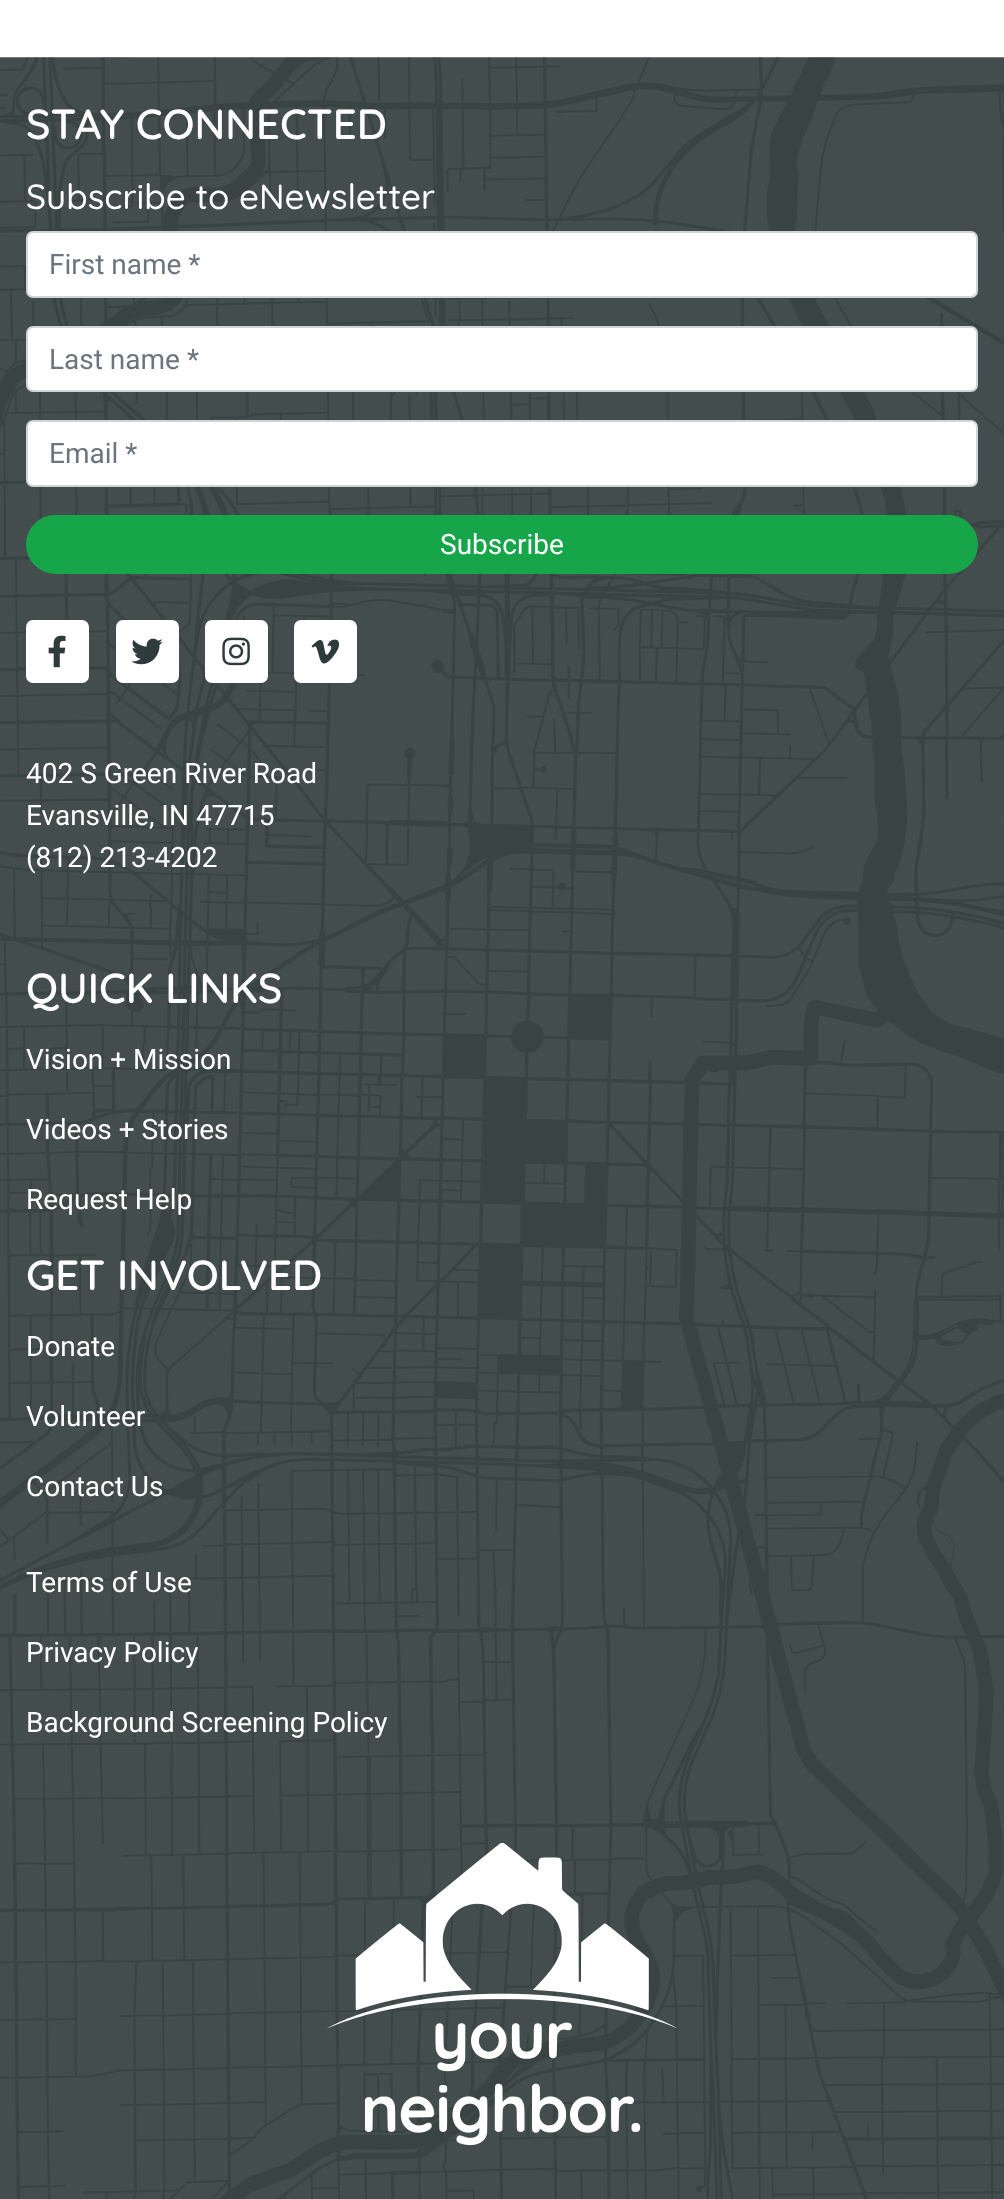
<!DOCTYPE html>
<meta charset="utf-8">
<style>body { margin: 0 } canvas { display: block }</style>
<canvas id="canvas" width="1004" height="2199"></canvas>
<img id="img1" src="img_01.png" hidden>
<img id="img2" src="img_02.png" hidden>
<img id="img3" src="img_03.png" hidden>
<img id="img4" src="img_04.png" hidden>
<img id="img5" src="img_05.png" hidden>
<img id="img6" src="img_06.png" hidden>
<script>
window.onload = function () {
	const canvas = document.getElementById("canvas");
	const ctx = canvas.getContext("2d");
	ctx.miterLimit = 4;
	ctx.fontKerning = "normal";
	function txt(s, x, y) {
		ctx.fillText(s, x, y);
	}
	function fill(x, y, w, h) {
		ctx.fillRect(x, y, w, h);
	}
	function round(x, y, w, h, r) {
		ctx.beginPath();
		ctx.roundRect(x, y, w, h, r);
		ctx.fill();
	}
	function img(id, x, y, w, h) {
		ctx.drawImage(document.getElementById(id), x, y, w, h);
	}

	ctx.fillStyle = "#FFFFFF";
	fill(0, 0, 1004, 2199);
	img("img1", 0, 57, 1004, 2142);
	ctx.beginPath();
	ctx.roundRect(27, 232, 950, 65, 6);
	ctx.fill();
	ctx.strokeStyle = "#CED4DA";
	ctx.lineWidth = 2;
	ctx.stroke();
	ctx.beginPath();
	ctx.roundRect(27, 327, 950, 64, 6);
	ctx.fill();
	ctx.stroke();
	ctx.beginPath();
	ctx.roundRect(27, 421, 950, 65, 6);
	ctx.fill();
	ctx.stroke();
	ctx.fillStyle = "#17A54A";
	ctx.beginPath();
	ctx.roundRect(27, 516, 950, 57, 28.5);
	ctx.fill();
	ctx.strokeStyle = "#17A54A";
	ctx.stroke();
	ctx.fillStyle = "#FFFFFF";
	round(26, 620, 63, 63, 7);
	img("img2", 48, 635, 18, 33);
	round(116, 620, 63, 63, 7);
	img("img3", 131, 638, 32, 27);
	round(205, 620, 63, 63, 7);
	img("img4", 222, 637, 28, 29);
	round(294, 620, 63, 63, 7);
	img("img5", 311, 639, 29, 25);
	img("img6", 327, 1843, 350, 303);
	ctx.font = "600 42px Quicksand";
	txt("STAY CONNECTED", 26, 139);
	ctx.font = "500 35px Quicksand";
	txt("Subscribe to eNewsletter", 26, 209);
	ctx.font = "28px Roboto";
	ctx.fillStyle = "#6C757D";
	txt("First name *", 49, 274);
	txt("Last name *", 49, 369);
	txt("Email *", 49, 463);
	ctx.fillStyle = "#FFFFFF";
	txt("Subscribe", 440, 554);
	txt("402 S Green River Road", 26, 783);
	txt("Evansville, IN 47715", 26, 825);
	txt("(812) 213-4202", 26, 867);
	ctx.font = "600 42px Quicksand";
	txt("QUICK LINKS", 26, 1003);
	ctx.font = "28px Roboto";
	txt("Vision + Mission", 26, 1069);
	txt("Videos + Stories", 26, 1139);
	txt("Request Help", 26, 1209);
	ctx.font = "600 42px Quicksand";
	txt("GET INVOLVED", 26, 1290);
	ctx.font = "28px Roboto";
	txt("Donate", 26, 1356);
	txt("Volunteer", 26, 1426);
	txt("Contact Us", 26, 1496);
	txt("Terms of Use", 26, 1592);
	txt("Privacy Policy", 26, 1662);
	txt("Background Screening Policy", 26, 1732);
};
</script>
